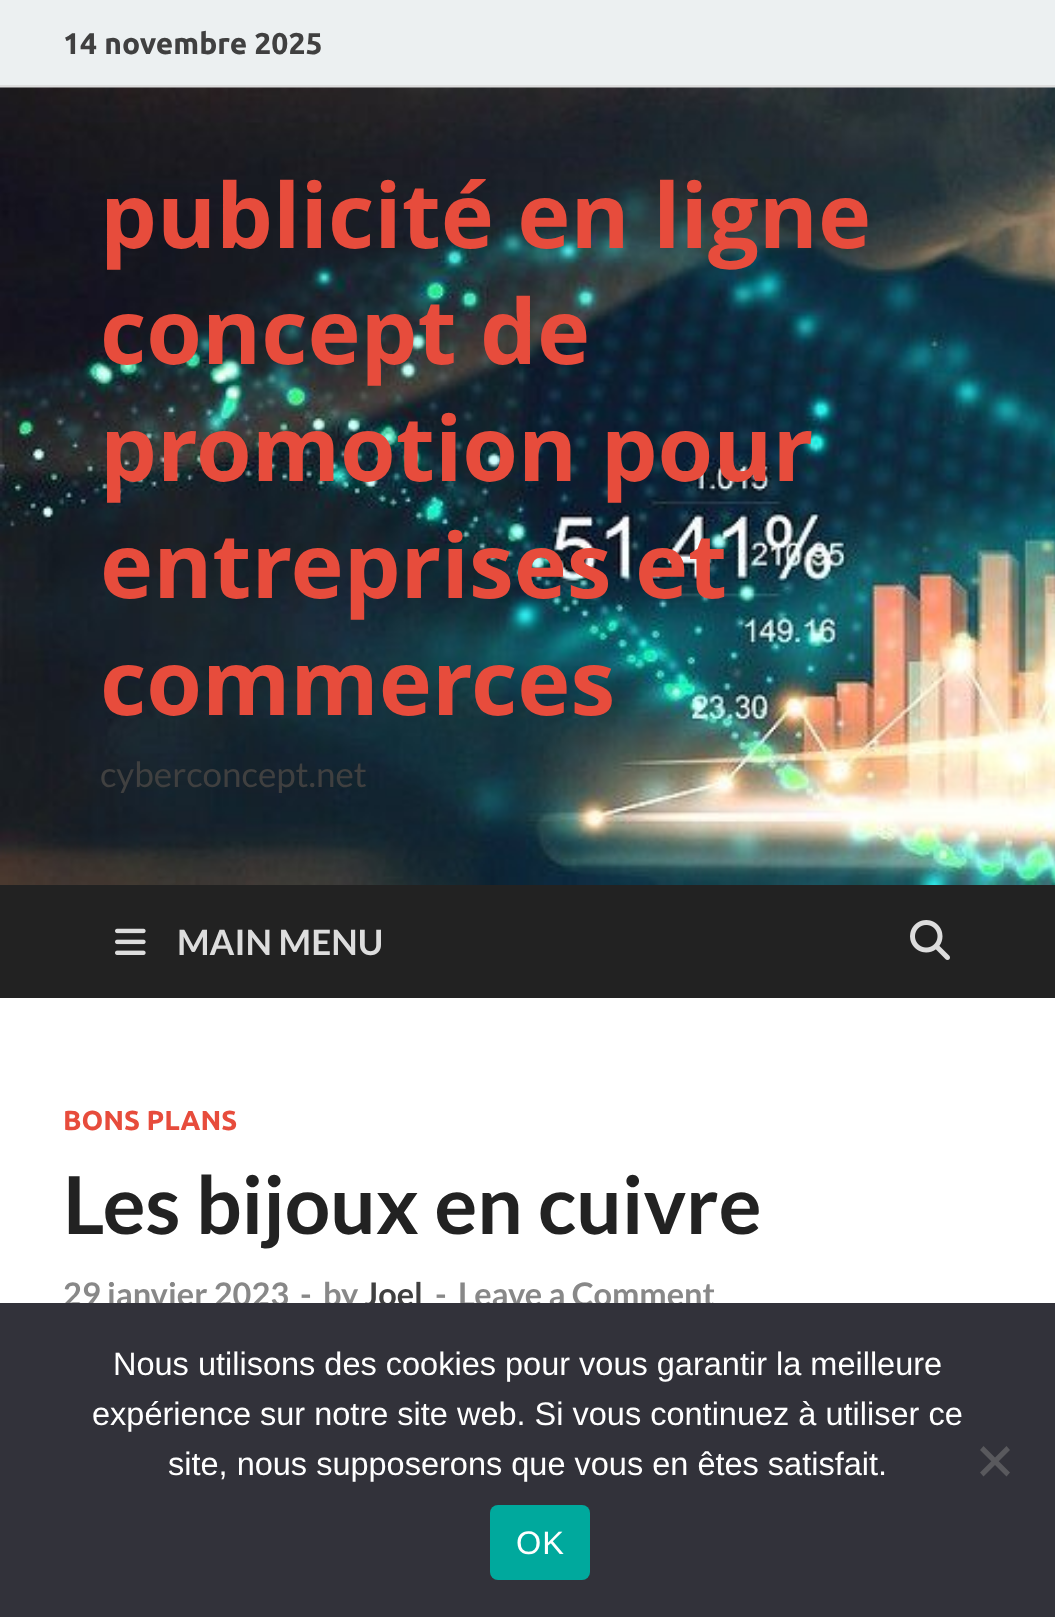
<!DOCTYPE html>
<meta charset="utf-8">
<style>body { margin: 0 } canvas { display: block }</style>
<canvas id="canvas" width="1055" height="1617"></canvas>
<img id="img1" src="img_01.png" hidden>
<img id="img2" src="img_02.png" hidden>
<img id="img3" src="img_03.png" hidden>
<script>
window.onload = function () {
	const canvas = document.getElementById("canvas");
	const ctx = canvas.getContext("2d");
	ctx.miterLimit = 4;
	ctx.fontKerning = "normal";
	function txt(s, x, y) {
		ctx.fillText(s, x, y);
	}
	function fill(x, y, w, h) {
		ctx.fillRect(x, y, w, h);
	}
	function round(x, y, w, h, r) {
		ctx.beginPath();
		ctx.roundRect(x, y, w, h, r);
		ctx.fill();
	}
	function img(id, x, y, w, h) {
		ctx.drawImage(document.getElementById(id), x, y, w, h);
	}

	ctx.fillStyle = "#FFFFFF";
	fill(0, 0, 1055, 1617);
	ctx.fillStyle = "#ECF0F1";
	fill(0, 0, 1055, 85);
	ctx.fillStyle = "#DDDDDD";
	fill(0, 85, 1055, 3);
	img("img1", 0, 87, 1055, 798);
	ctx.fillStyle = "#222222";
	fill(0, 885, 1055, 113);
	img("img2", 115, 928, 31, 27);
	img("img3", 910, 920, 40, 40);
	ctx.font = "bold 30px Ubuntu";
	ctx.fillStyle = "#404040";
	txt("14 novembre 2025", 63, 54);
	ctx.font = "bold 90px Open Sans";
	ctx.fillStyle = "#E74C3C";
	txt("publicité en ligne", 100, 248);
	txt("concept de", 100, 364);
	txt("promotion pour", 100, 481);
	txt("entreprises et", 100, 598);
	txt("commerces", 100, 715);
	ctx.font = "35px Lato";
	ctx.fillStyle = "#404040";
	txt("cyberconcept.net", 100, 787);
	ctx.font = "bold 35px Lato";
	ctx.fillStyle = "#DDDDDD";
	txt("MAIN MENU", 177, 955);
	ctx.font = "bold 27.5px Ubuntu";
	ctx.fillStyle = "#E74C3C";
	txt("BONS PLANS", 63, 1130);
	ctx.font = "bold 80px Lato";
	ctx.fillStyle = "#222222";
	txt("Les bijoux en cuivre", 63, 1234);
	ctx.font = "bold 32.5px Lato";
	ctx.fillStyle = "#888888";
	txt("29 janvier 2023", 63, 1306);
	txt("-", 300, 1306);
	txt("by", 323, 1306);
	ctx.fillStyle = "#404040";
	txt("Joel", 364, 1306);
	ctx.fillStyle = "#888888";
	txt("-", 435, 1306);
	txt("Leave a Comment", 458, 1306);
	ctx.fillStyle = "#32323A";
	fill(0, 1303, 1055, 314);
	ctx.font = "32.5px Liberation Sans";
	ctx.fillStyle = "#FFFFFF";
	txt("Nous utilisons des cookies pour vous garantir la meilleure", 113, 1375);
	txt("expérience sur notre site web. Si vous continuez à utiliser ce", 92, 1425);
	txt("site, nous supposerons que vous en êtes satisfait.", 168, 1475);
	ctx.fillStyle = "#59595D";
	ctx.beginPath();
	ctx.moveTo(1006.5, 1446);
	ctx.lineTo(1010, 1450);
	ctx.lineTo(983.5, 1476.5);
	ctx.lineTo(980, 1472.5);
	ctx.closePath();
	ctx.fill();
	ctx.beginPath();
	ctx.moveTo(980, 1450);
	ctx.lineTo(983.5, 1446);
	ctx.lineTo(1010, 1472.5);
	ctx.lineTo(1006.5, 1476.5);
	ctx.closePath();
	ctx.fill();
	ctx.fillStyle = "#00A99D";
	round(490, 1505, 100, 75, 8);
	ctx.letterSpacing = "1px";
	ctx.fillStyle = "#FFFFFF";
	txt("OK", 516, 1554);
};
</script>
